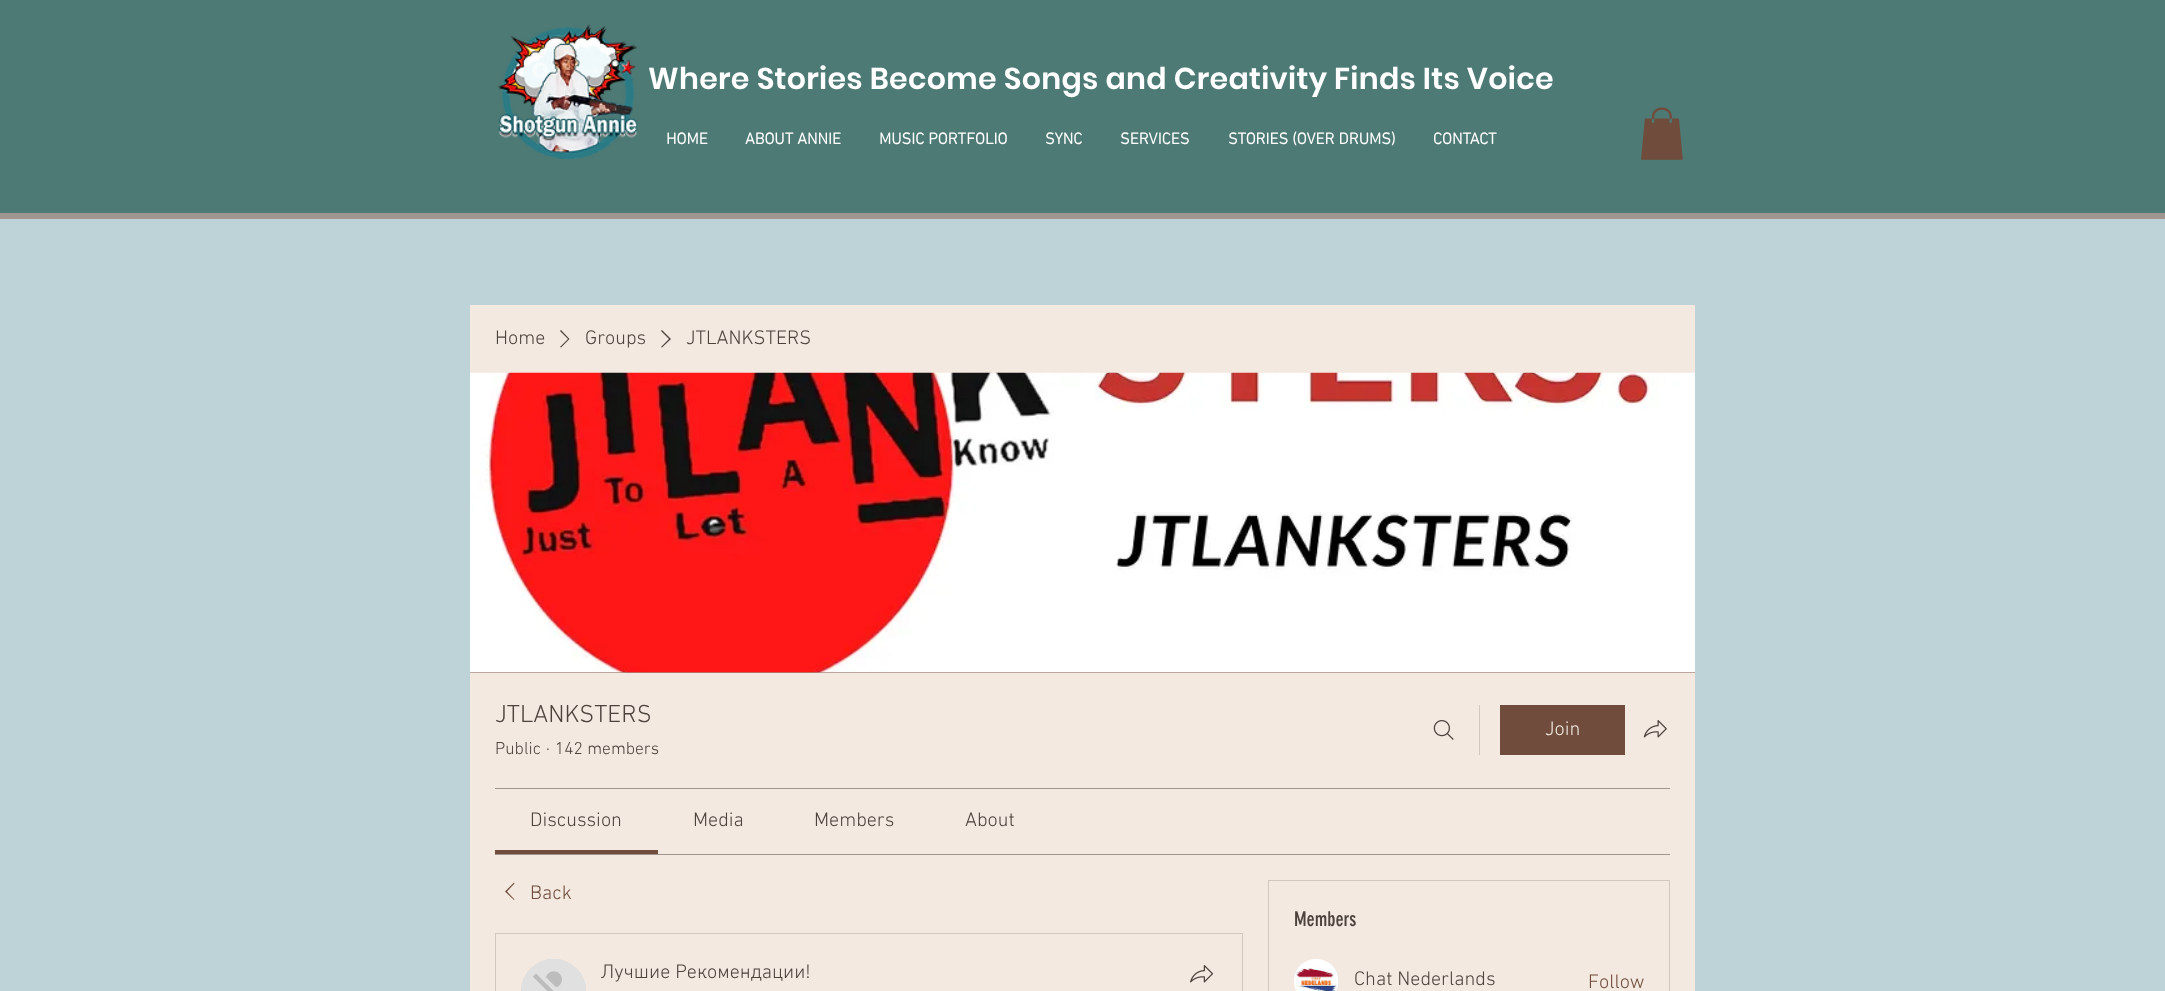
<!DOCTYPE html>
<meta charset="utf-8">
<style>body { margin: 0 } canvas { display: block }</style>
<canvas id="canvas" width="2165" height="991"></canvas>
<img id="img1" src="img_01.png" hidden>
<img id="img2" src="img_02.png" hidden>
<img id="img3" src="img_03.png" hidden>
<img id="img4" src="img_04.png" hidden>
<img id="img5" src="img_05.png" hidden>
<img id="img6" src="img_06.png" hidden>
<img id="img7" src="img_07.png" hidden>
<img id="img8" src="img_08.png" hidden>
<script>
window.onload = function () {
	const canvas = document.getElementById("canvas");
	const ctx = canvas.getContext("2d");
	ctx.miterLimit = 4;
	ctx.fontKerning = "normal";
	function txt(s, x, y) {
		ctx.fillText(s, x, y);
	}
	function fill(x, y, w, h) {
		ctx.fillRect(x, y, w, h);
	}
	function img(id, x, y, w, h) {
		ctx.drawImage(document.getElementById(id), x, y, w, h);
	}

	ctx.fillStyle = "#BED3D8";
	fill(0, 0, 2165, 991);
	ctx.fillStyle = "#A0968F";
	fill(0, 213, 2165, 6);
	ctx.fillStyle = "#4D7A75";
	fill(0, 0, 2165, 213);
	img("img1", 498, 24, 140, 136);
	img("img2", 1641, 107, 42, 53);
	ctx.fillStyle = "#F3E9E1";
	fill(470, 305, 1225, 686);
	ctx.fillStyle = "#4C433D";
	ctx.beginPath();
	ctx.moveTo(561, 330);
	ctx.lineTo(569.5, 339);
	ctx.lineTo(561, 347.5);
	ctx.lineTo(560, 347);
	ctx.lineTo(568, 339);
	ctx.lineTo(560, 331);
	ctx.closePath();
	ctx.fill("evenodd");
	ctx.beginPath();
	ctx.moveTo(662, 330);
	ctx.lineTo(671, 339);
	ctx.lineTo(662, 347.5);
	ctx.lineTo(661, 347);
	ctx.lineTo(669, 339);
	ctx.lineTo(661, 331);
	ctx.closePath();
	ctx.fill("evenodd");
	ctx.fillStyle = "#A48A7D";
	fill(470, 672, 1225, 1);
	img("img3", 470, 372, 1225, 301);
	img("img4", 1433, 720, 21, 20);
	ctx.fillStyle = "#D2C8C0";
	fill(1479, 705, 1, 50);
	ctx.fillStyle = "#6F4C3B";
	fill(1500, 705, 125, 50);
	img("img5", 1643, 720, 24, 18);
	ctx.fillStyle = "#A0968F";
	fill(495, 788, 1175, 1);
	fill(495, 854, 1175, 1);
	ctx.fillStyle = "#6F4C3B";
	fill(495, 850, 163, 4);
	ctx.beginPath();
	ctx.moveTo(514, 882.5);
	ctx.lineTo(514.5, 883.5);
	ctx.lineTo(507, 891.5);
	ctx.lineTo(514.5, 899.5);
	ctx.lineTo(514, 900);
	ctx.lineTo(505, 891.5);
	ctx.closePath();
	ctx.fill("evenodd");
	ctx.strokeStyle = "#D2C8C0";
	ctx.strokeRect(495.5, 933.5, 747, 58);
	ctx.fillStyle = "#D8D8D8";
	ctx.beginPath();
	ctx.arc(553.5, 991.5, 32.5, 0, Math.PI * 2);
	ctx.fill();
	img("img6", 522, 959, 64, 32);
	img("img7", 1190, 965, 24, 18);
	ctx.strokeRect(1268.5, 880.5, 401, 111);
	ctx.beginPath();
	ctx.arc(1316.5, 981.5, 22.5, 0, Math.PI * 2);
	ctx.fill();
	img("img8", 1294, 959, 45, 32);
	ctx.letterSpacing = "0.3px";
	ctx.font = "600 30px Poppins";
	ctx.fillStyle = "#FFFFFF";
	txt("Where Stories Become Songs and Creativity Finds Its Voice", 648, 89);
	ctx.letterSpacing = "0px";
	ctx.font = "bold 16.25px 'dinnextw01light'";
	txt("HOME", 666, 144);
	txt("ABOUT ANNIE", 745, 144);
	txt("MUSIC PORTFOLIO", 879, 144);
	txt("SYNC", 1045, 144);
	txt("SERVICES", 1120, 144);
	txt("STORIES (OVER DRUMS)", 1228, 144);
	txt("CONTACT", 1433, 144);
	ctx.font = "300 20px 'dinnextw01light'";
	ctx.fillStyle = "#4C433D";
	txt("Home", 495, 344);
	txt("Groups", 585, 344);
	txt("JTLANKSTERS", 686, 344);
	ctx.font = "300 25px 'dinnextw01light'";
	txt("JTLANKSTERS", 495, 722);
	ctx.font = "300 17.5px 'dinnextw01light'";
	txt("Public", 495, 754);
	txt("·", 546, 754);
	txt("142 members", 555, 754);
	ctx.font = "300 20px 'dinnextw01light'";
	ctx.fillStyle = "#F3E9E1";
	txt("Join", 1545, 735);
	ctx.fillStyle = "#4C433D";
	txt("Discussion", 530, 826);
	txt("Media", 693, 826);
	txt("Members", 814, 826);
	txt("About", 965, 826);
	ctx.fillStyle = "#6F4C3B";
	txt("Back", 530, 899);
	ctx.fillStyle = "#4C433D";
	txt("Лучшие Рекомендации!", 601, 978);
	ctx.font = "20px 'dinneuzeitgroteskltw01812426'";
	txt("Members", 1294, 926);
	ctx.font = "300 20px 'dinnextw01light'";
	txt("Chat Nederlands", 1354, 985);
	ctx.fillStyle = "#6F4C3B";
	txt("Follow", 1588, 988);
};
</script>
